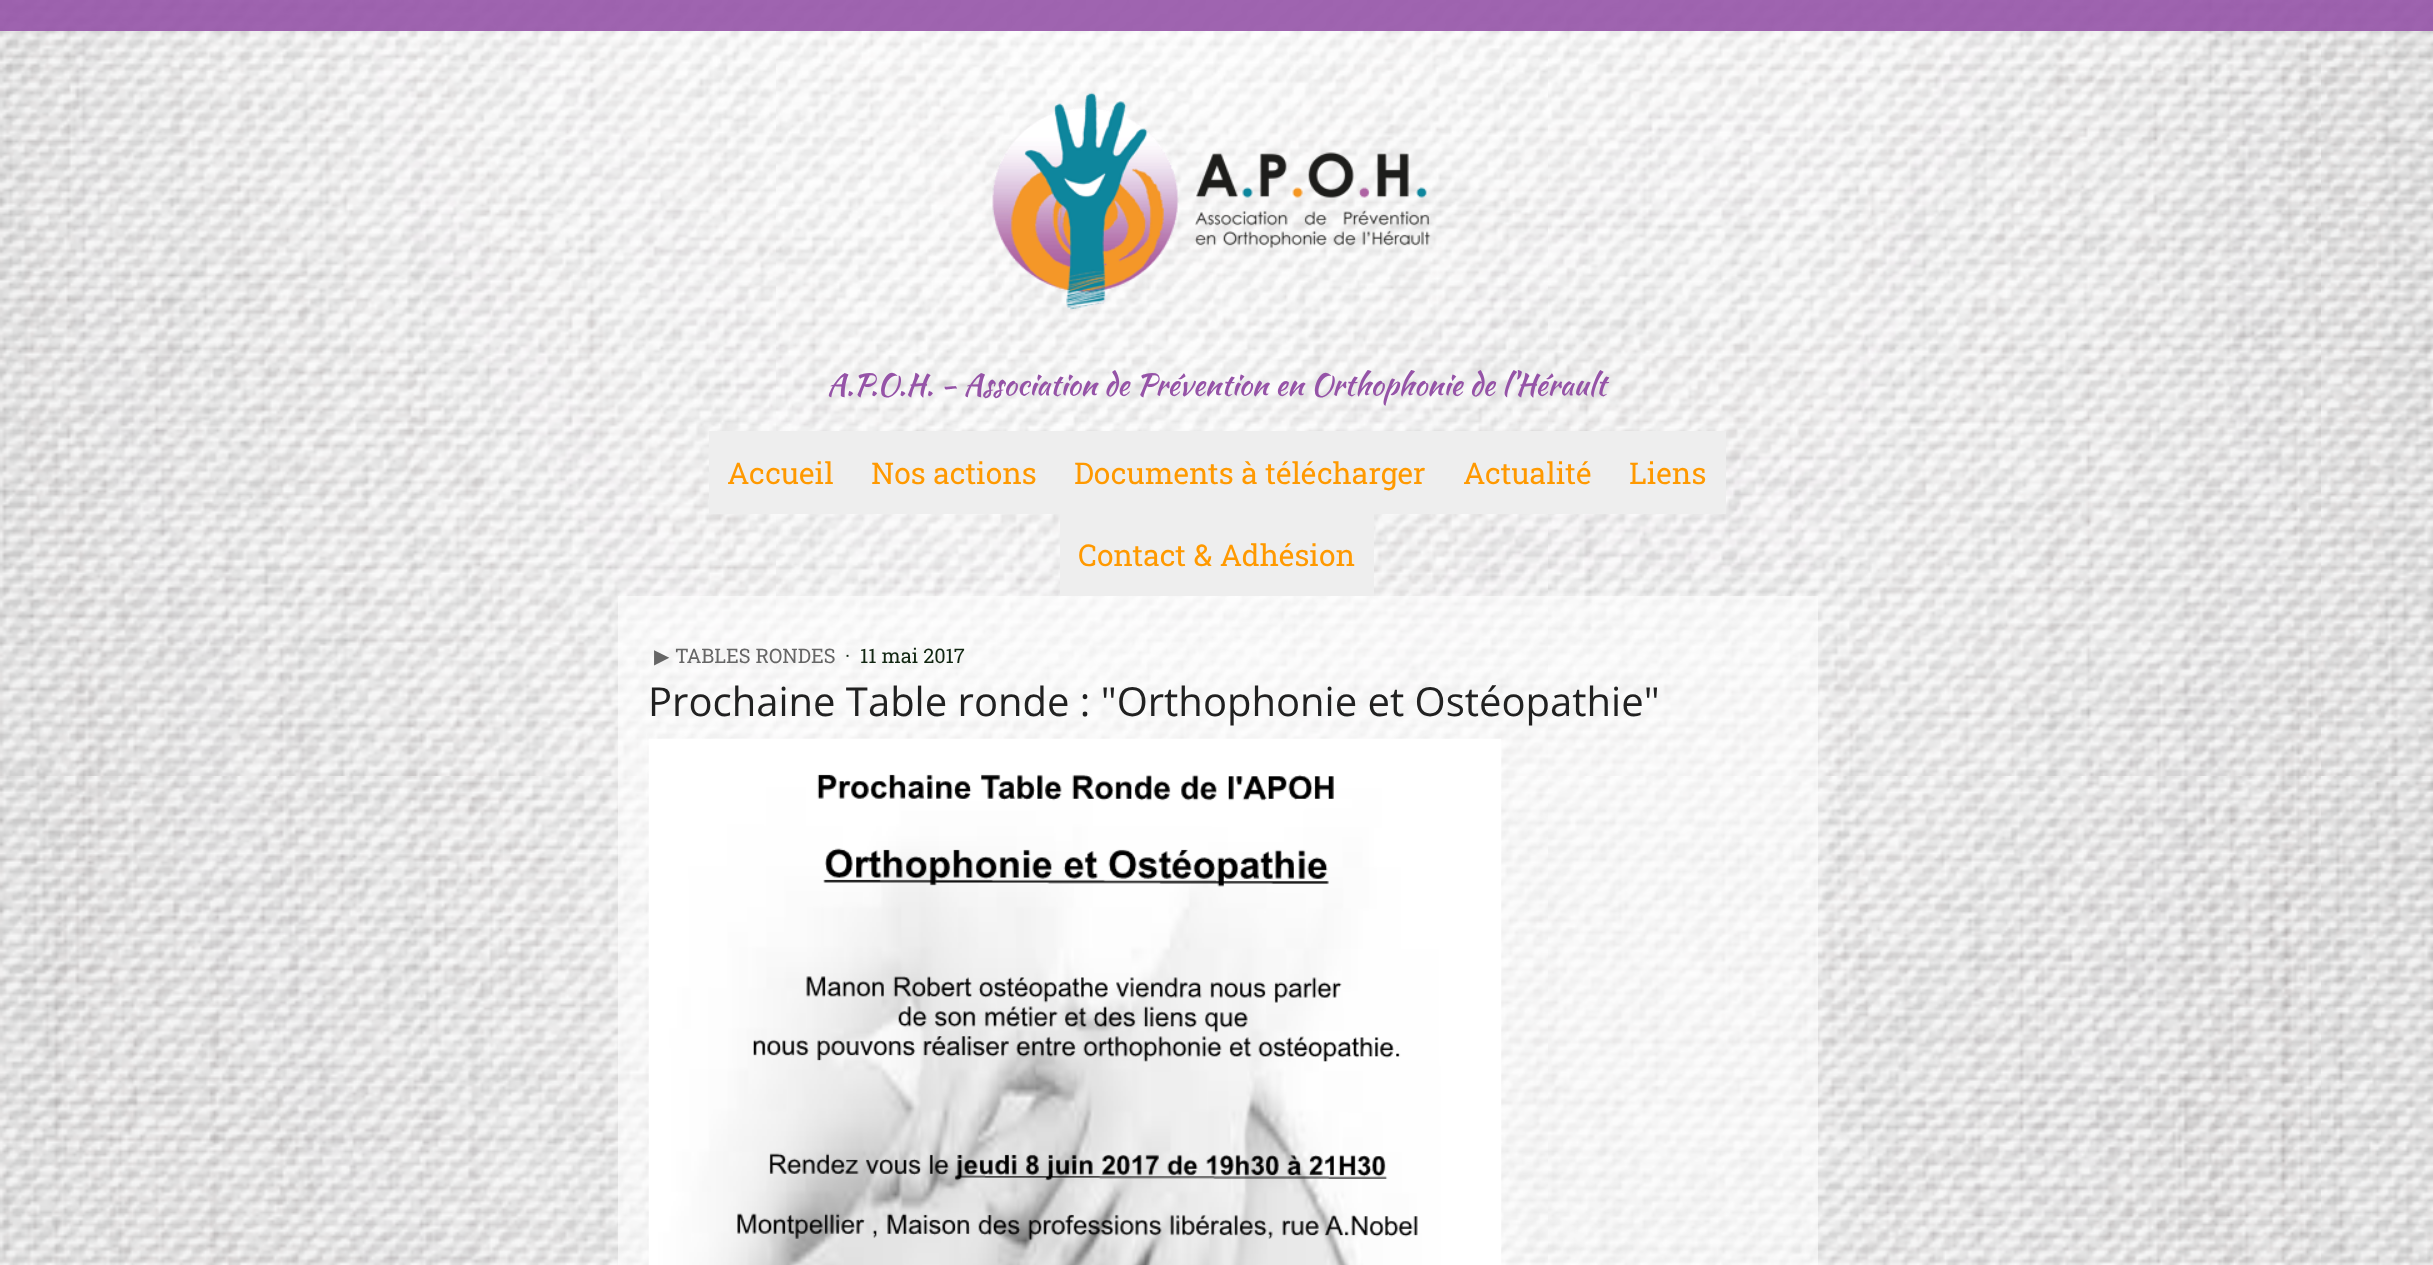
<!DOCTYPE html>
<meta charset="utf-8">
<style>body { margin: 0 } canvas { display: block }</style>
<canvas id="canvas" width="2433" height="1265"></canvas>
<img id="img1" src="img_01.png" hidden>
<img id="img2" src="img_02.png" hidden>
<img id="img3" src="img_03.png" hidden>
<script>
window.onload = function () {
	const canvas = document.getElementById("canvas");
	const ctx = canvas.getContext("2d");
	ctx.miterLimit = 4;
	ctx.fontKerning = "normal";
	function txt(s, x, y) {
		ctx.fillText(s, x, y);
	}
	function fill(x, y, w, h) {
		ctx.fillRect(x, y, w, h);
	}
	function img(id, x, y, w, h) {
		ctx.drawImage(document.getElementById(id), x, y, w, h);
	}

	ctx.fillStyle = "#FFFFFF";
	fill(0, 0, 2433, 1265);
	img("img1", 0, 0, 2433, 1265);
	ctx.fillStyle = "rgba(149, 83, 167, 0.9)";
	fill(0, 0, 2433, 31);
	img("img2", 992, 92, 439, 218);
	ctx.fillStyle = "#EEEEEE";
	fill(709, 431, 1017, 83);
	fill(1060, 514, 314, 82);
	ctx.fillStyle = "rgba(255, 255, 255, 0.6)";
	fill(618, 596, 1200, 669);
	img("img3", 648, 738, 854, 527);
	ctx.font = "30px Kaushan Script";
	ctx.fillStyle = "#9553A7";
	txt("A.P.O.H. - Association de Prévention en Orthophonie de l'Hérault", 827, 395);
	ctx.font = "30px Roboto Slab";
	ctx.fillStyle = "#FF9900";
	txt("Accueil", 727, 484);
	txt("Nos actions", 871, 484);
	txt("Documents à télécharger", 1074, 484);
	txt("Actualité", 1463, 484);
	txt("Liens", 1629, 484);
	txt("Contact & Adhésion", 1078, 566);
	ctx.font = "20px DejaVu Sans";
	ctx.fillStyle = "#666666";
	txt("▶︎", 654, 663);
	ctx.font = "20px Roboto Slab";
	txt("TABLES RONDES", 675, 663);
	ctx.fillStyle = "#112611";
	txt("·", 845, 663);
	txt("11 mai 2017", 860, 663);
	ctx.font = "40px Open Sans";
	ctx.fillStyle = "#212121";
	txt("Prochaine Table ronde : \"Orthophonie et Ostéopathie\"", 648, 716);
};
</script>
